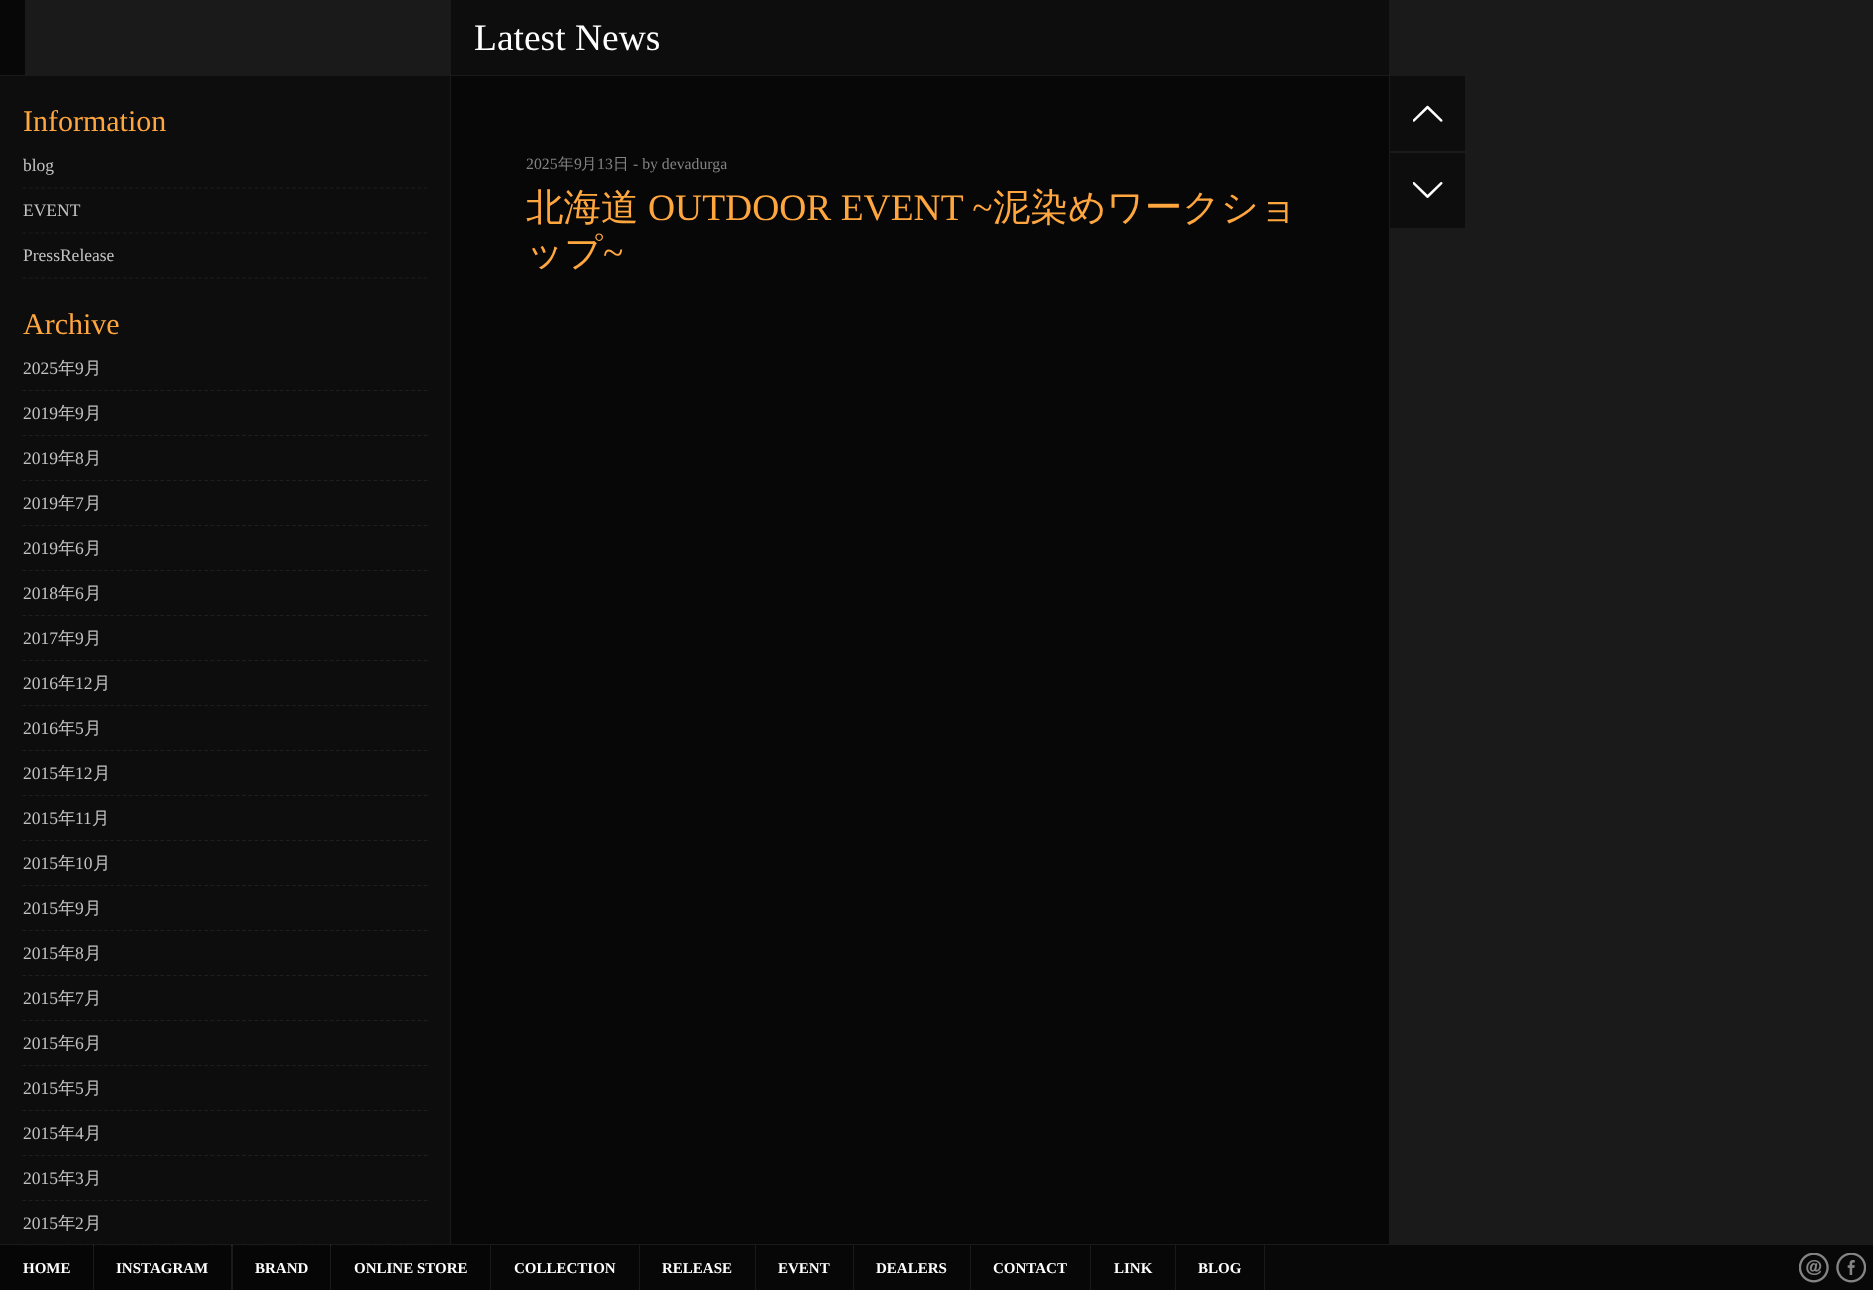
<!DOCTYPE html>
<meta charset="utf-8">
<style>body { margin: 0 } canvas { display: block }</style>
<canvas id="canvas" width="1873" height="1290"></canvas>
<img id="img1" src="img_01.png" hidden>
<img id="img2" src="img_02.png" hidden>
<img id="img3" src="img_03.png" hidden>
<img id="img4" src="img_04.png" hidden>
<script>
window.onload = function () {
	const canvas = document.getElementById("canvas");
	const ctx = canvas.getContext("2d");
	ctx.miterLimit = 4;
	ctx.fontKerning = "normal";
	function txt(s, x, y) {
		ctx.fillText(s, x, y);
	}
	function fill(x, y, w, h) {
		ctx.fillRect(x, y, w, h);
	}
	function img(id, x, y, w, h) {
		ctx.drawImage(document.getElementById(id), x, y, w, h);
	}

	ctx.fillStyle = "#1A1A1A";
	fill(0, 0, 1873, 1290);
	ctx.fillStyle = "#070707";
	fill(0, 0, 25, 75);
	ctx.fillStyle = "#0D0D0D";
	fill(0, 76, 450, 1168);
	ctx.beginPath();
	ctx.moveTo(22.5, 188);
	ctx.lineTo(427.5, 188);
	ctx.strokeStyle = "#1F1F1F";
	ctx.lineWidth = 1.2;
	ctx.setLineDash([3.75, 2.52]);
	ctx.stroke();
	ctx.beginPath();
	ctx.moveTo(22.5, 233);
	ctx.lineTo(427.5, 233);
	ctx.stroke();
	ctx.beginPath();
	ctx.moveTo(22.5, 278);
	ctx.lineTo(427.5, 278);
	ctx.stroke();
	ctx.beginPath();
	ctx.moveTo(22.5, 390.5);
	ctx.lineTo(427.5, 390.5);
	ctx.stroke();
	ctx.beginPath();
	ctx.moveTo(22.5, 435.5);
	ctx.lineTo(427.5, 435.5);
	ctx.stroke();
	ctx.beginPath();
	ctx.moveTo(22.5, 480.5);
	ctx.lineTo(427.5, 480.5);
	ctx.stroke();
	ctx.beginPath();
	ctx.moveTo(22.5, 525.5);
	ctx.lineTo(427.5, 525.5);
	ctx.stroke();
	ctx.beginPath();
	ctx.moveTo(22.5, 570.5);
	ctx.lineTo(427.5, 570.5);
	ctx.stroke();
	ctx.beginPath();
	ctx.moveTo(22.5, 615.5);
	ctx.lineTo(427.5, 615.5);
	ctx.stroke();
	ctx.beginPath();
	ctx.moveTo(22.5, 660.5);
	ctx.lineTo(427.5, 660.5);
	ctx.stroke();
	ctx.beginPath();
	ctx.moveTo(22.5, 705.5);
	ctx.lineTo(427.5, 705.5);
	ctx.stroke();
	ctx.beginPath();
	ctx.moveTo(22.5, 750.5);
	ctx.lineTo(427.5, 750.5);
	ctx.stroke();
	ctx.beginPath();
	ctx.moveTo(22.5, 795.5);
	ctx.lineTo(427.5, 795.5);
	ctx.stroke();
	ctx.beginPath();
	ctx.moveTo(22.5, 840.5);
	ctx.lineTo(427.5, 840.5);
	ctx.stroke();
	ctx.beginPath();
	ctx.moveTo(22.5, 885.5);
	ctx.lineTo(427.5, 885.5);
	ctx.stroke();
	ctx.beginPath();
	ctx.moveTo(22.5, 930.5);
	ctx.lineTo(427.5, 930.5);
	ctx.stroke();
	ctx.beginPath();
	ctx.moveTo(22.5, 975.5);
	ctx.lineTo(427.5, 975.5);
	ctx.stroke();
	ctx.beginPath();
	ctx.moveTo(22.5, 1020.5);
	ctx.lineTo(427.5, 1020.5);
	ctx.stroke();
	ctx.beginPath();
	ctx.moveTo(22.5, 1065.5);
	ctx.lineTo(427.5, 1065.5);
	ctx.stroke();
	ctx.beginPath();
	ctx.moveTo(22.5, 1110.5);
	ctx.lineTo(427.5, 1110.5);
	ctx.stroke();
	ctx.beginPath();
	ctx.moveTo(22.5, 1155.5);
	ctx.lineTo(427.5, 1155.5);
	ctx.stroke();
	ctx.beginPath();
	ctx.moveTo(22.5, 1200.5);
	ctx.lineTo(427.5, 1200.5);
	ctx.stroke();
	ctx.beginPath();
	ctx.moveTo(22.5, 1245.5);
	ctx.lineTo(427.5, 1245.5);
	ctx.strokeStyle = "#2B2B2B";
	ctx.stroke();
	fill(451, 0, 938, 75);
	ctx.fillStyle = "#070707";
	fill(451, 76, 938, 1168);
	ctx.fillStyle = "#0D0D0D";
	fill(1390, 76, 75, 75);
	img("img1", 1413, 105, 30, 17);
	fill(1390, 153, 75, 75);
	img("img2", 1413, 182, 30, 16);
	ctx.fillStyle = "#080808";
	fill(1265, 1245, 608, 45);
	ctx.fillStyle = "rgba(0, 0, 0, 0.75)";
	fill(0, 1245, 93, 45);
	fill(94, 1245, 137, 45);
	fill(233, 1245, 97, 45);
	fill(331, 1245, 159, 45);
	ctx.fillStyle = "#070707";
	fill(491, 1245, 148, 45);
	fill(640, 1245, 115, 45);
	fill(756, 1245, 97, 45);
	fill(854, 1245, 116, 45);
	fill(971, 1245, 119, 45);
	fill(1091, 1245, 84, 45);
	fill(1176, 1245, 88, 45);
	img("img3", 1799, 1253, 30, 30);
	img("img4", 1836, 1253, 30, 30);
	ctx.font = "30px Liberation Serif";
	ctx.fillStyle = "#FFA63F";
	txt("Information", 23, 131);
	ctx.font = "17.5px Liberation Serif";
	ctx.fillStyle = "#C3C3C3";
	txt("blog", 23, 171);
	txt("EVENT", 23, 216);
	txt("PressRelease", 23, 261);
	ctx.font = "30px Liberation Serif";
	ctx.fillStyle = "#FFA63F";
	txt("Archive", 23, 334);
	ctx.font = "17.5px Liberation Serif";
	ctx.fillStyle = "#C3C3C3";
	txt("2025", 23, 374);
	ctx.font = "500 17.5px WenQuanYi Zen Hei";
	txt("年", 58, 374);
	ctx.font = "17.5px Liberation Serif";
	txt("9", 75, 374);
	ctx.font = "500 17.5px WenQuanYi Zen Hei";
	txt("月", 84, 374);
	ctx.font = "17.5px Liberation Serif";
	txt("2019", 23, 419);
	ctx.font = "500 17.5px WenQuanYi Zen Hei";
	txt("年", 58, 419);
	ctx.font = "17.5px Liberation Serif";
	txt("9", 75, 419);
	ctx.font = "500 17.5px WenQuanYi Zen Hei";
	txt("月", 84, 419);
	ctx.font = "17.5px Liberation Serif";
	txt("2019", 23, 464);
	ctx.font = "500 17.5px WenQuanYi Zen Hei";
	txt("年", 58, 464);
	ctx.font = "17.5px Liberation Serif";
	txt("8", 75, 464);
	ctx.font = "500 17.5px WenQuanYi Zen Hei";
	txt("月", 84, 464);
	ctx.font = "17.5px Liberation Serif";
	txt("2019", 23, 509);
	ctx.font = "500 17.5px WenQuanYi Zen Hei";
	txt("年", 58, 509);
	ctx.font = "17.5px Liberation Serif";
	txt("7", 75, 509);
	ctx.font = "500 17.5px WenQuanYi Zen Hei";
	txt("月", 84, 509);
	ctx.font = "17.5px Liberation Serif";
	txt("2019", 23, 554);
	ctx.font = "500 17.5px WenQuanYi Zen Hei";
	txt("年", 58, 554);
	ctx.font = "17.5px Liberation Serif";
	txt("6", 75, 554);
	ctx.font = "500 17.5px WenQuanYi Zen Hei";
	txt("月", 84, 554);
	ctx.font = "17.5px Liberation Serif";
	txt("2018", 23, 599);
	ctx.font = "500 17.5px WenQuanYi Zen Hei";
	txt("年", 58, 599);
	ctx.font = "17.5px Liberation Serif";
	txt("6", 75, 599);
	ctx.font = "500 17.5px WenQuanYi Zen Hei";
	txt("月", 84, 599);
	ctx.font = "17.5px Liberation Serif";
	txt("2017", 23, 644);
	ctx.font = "500 17.5px WenQuanYi Zen Hei";
	txt("年", 58, 644);
	ctx.font = "17.5px Liberation Serif";
	txt("9", 75, 644);
	ctx.font = "500 17.5px WenQuanYi Zen Hei";
	txt("月", 84, 644);
	ctx.font = "17.5px Liberation Serif";
	txt("2016", 23, 689);
	ctx.font = "500 17.5px WenQuanYi Zen Hei";
	txt("年", 58, 689);
	ctx.font = "17.5px Liberation Serif";
	txt("12", 75, 689);
	ctx.font = "500 17.5px WenQuanYi Zen Hei";
	txt("月", 93, 689);
	ctx.font = "17.5px Liberation Serif";
	txt("2016", 23, 734);
	ctx.font = "500 17.5px WenQuanYi Zen Hei";
	txt("年", 58, 734);
	ctx.font = "17.5px Liberation Serif";
	txt("5", 75, 734);
	ctx.font = "500 17.5px WenQuanYi Zen Hei";
	txt("月", 84, 734);
	ctx.font = "17.5px Liberation Serif";
	txt("2015", 23, 779);
	ctx.font = "500 17.5px WenQuanYi Zen Hei";
	txt("年", 58, 779);
	ctx.font = "17.5px Liberation Serif";
	txt("12", 75, 779);
	ctx.font = "500 17.5px WenQuanYi Zen Hei";
	txt("月", 93, 779);
	ctx.font = "17.5px Liberation Serif";
	txt("2015", 23, 824);
	ctx.font = "500 17.5px WenQuanYi Zen Hei";
	txt("年", 58, 824);
	ctx.font = "17.5px Liberation Serif";
	txt("11", 75, 824);
	ctx.font = "500 17.5px WenQuanYi Zen Hei";
	txt("月", 92, 824);
	ctx.font = "17.5px Liberation Serif";
	txt("2015", 23, 869);
	ctx.font = "500 17.5px WenQuanYi Zen Hei";
	txt("年", 58, 869);
	ctx.font = "17.5px Liberation Serif";
	txt("10", 75, 869);
	ctx.font = "500 17.5px WenQuanYi Zen Hei";
	txt("月", 93, 869);
	ctx.font = "17.5px Liberation Serif";
	txt("2015", 23, 914);
	ctx.font = "500 17.5px WenQuanYi Zen Hei";
	txt("年", 58, 914);
	ctx.font = "17.5px Liberation Serif";
	txt("9", 75, 914);
	ctx.font = "500 17.5px WenQuanYi Zen Hei";
	txt("月", 84, 914);
	ctx.font = "17.5px Liberation Serif";
	txt("2015", 23, 959);
	ctx.font = "500 17.5px WenQuanYi Zen Hei";
	txt("年", 58, 959);
	ctx.font = "17.5px Liberation Serif";
	txt("8", 75, 959);
	ctx.font = "500 17.5px WenQuanYi Zen Hei";
	txt("月", 84, 959);
	ctx.font = "17.5px Liberation Serif";
	txt("2015", 23, 1004);
	ctx.font = "500 17.5px WenQuanYi Zen Hei";
	txt("年", 58, 1004);
	ctx.font = "17.5px Liberation Serif";
	txt("7", 75, 1004);
	ctx.font = "500 17.5px WenQuanYi Zen Hei";
	txt("月", 84, 1004);
	ctx.font = "17.5px Liberation Serif";
	txt("2015", 23, 1049);
	ctx.font = "500 17.5px WenQuanYi Zen Hei";
	txt("年", 58, 1049);
	ctx.font = "17.5px Liberation Serif";
	txt("6", 75, 1049);
	ctx.font = "500 17.5px WenQuanYi Zen Hei";
	txt("月", 84, 1049);
	ctx.font = "17.5px Liberation Serif";
	txt("2015", 23, 1094);
	ctx.font = "500 17.5px WenQuanYi Zen Hei";
	txt("年", 58, 1094);
	ctx.font = "17.5px Liberation Serif";
	txt("5", 75, 1094);
	ctx.font = "500 17.5px WenQuanYi Zen Hei";
	txt("月", 84, 1094);
	ctx.font = "17.5px Liberation Serif";
	txt("2015", 23, 1139);
	ctx.font = "500 17.5px WenQuanYi Zen Hei";
	txt("年", 58, 1139);
	ctx.font = "17.5px Liberation Serif";
	txt("4", 75, 1139);
	ctx.font = "500 17.5px WenQuanYi Zen Hei";
	txt("月", 84, 1139);
	ctx.font = "17.5px Liberation Serif";
	txt("2015", 23, 1184);
	ctx.font = "500 17.5px WenQuanYi Zen Hei";
	txt("年", 58, 1184);
	ctx.font = "17.5px Liberation Serif";
	txt("3", 75, 1184);
	ctx.font = "500 17.5px WenQuanYi Zen Hei";
	txt("月", 84, 1184);
	ctx.font = "17.5px Liberation Serif";
	txt("2015", 23, 1229);
	ctx.font = "500 17.5px WenQuanYi Zen Hei";
	txt("年", 58, 1229);
	ctx.font = "17.5px Liberation Serif";
	txt("2", 75, 1229);
	ctx.font = "500 17.5px WenQuanYi Zen Hei";
	txt("月", 84, 1229);
	ctx.font = "37.5px Liberation Serif";
	ctx.fillStyle = "#FFFFFF";
	txt("Latest News", 474, 50);
	ctx.font = "15.75px Liberation Serif";
	ctx.fillStyle = "#838383";
	txt("2025", 526, 169);
	ctx.font = "500 15.75px WenQuanYi Zen Hei";
	txt("年", 558, 169);
	ctx.font = "15.75px Liberation Serif";
	txt("9", 574, 169);
	ctx.font = "500 15.75px WenQuanYi Zen Hei";
	txt("月", 581, 169);
	ctx.font = "15.75px Liberation Serif";
	txt("13", 597, 169);
	ctx.font = "500 15.75px WenQuanYi Zen Hei";
	txt("日", 613, 169);
	ctx.font = "15.75px Liberation Serif";
	txt("- by devadurga", 633, 169);
	ctx.font = "500 37.5px WenQuanYi Zen Hei";
	ctx.fillStyle = "#FFA63F";
	txt("北海道", 526, 220);
	ctx.font = "37.5px Liberation Serif";
	txt("OUTDOOR EVENT ~", 648, 220);
	ctx.font = "500 37.5px WenQuanYi Zen Hei";
	txt("泥染めワークショ", 993, 220);
	txt("ップ", 526, 265);
	ctx.font = "37.5px Liberation Serif";
	txt("~", 603, 265);
	ctx.font = "bold 15px Liberation Serif";
	ctx.fillStyle = "#FFFFFF";
	txt("HOME", 23, 1273);
	txt("INSTAGRAM", 116, 1273);
	txt("BRAND", 255, 1273);
	txt("ONLINE STORE", 354, 1273);
	txt("COLLECTION", 514, 1273);
	txt("RELEASE", 662, 1273);
	txt("EVENT", 778, 1273);
	txt("DEALERS", 876, 1273);
	txt("CONTACT", 993, 1273);
	txt("LINK", 1114, 1273);
	txt("BLOG", 1198, 1273);
};
</script>
